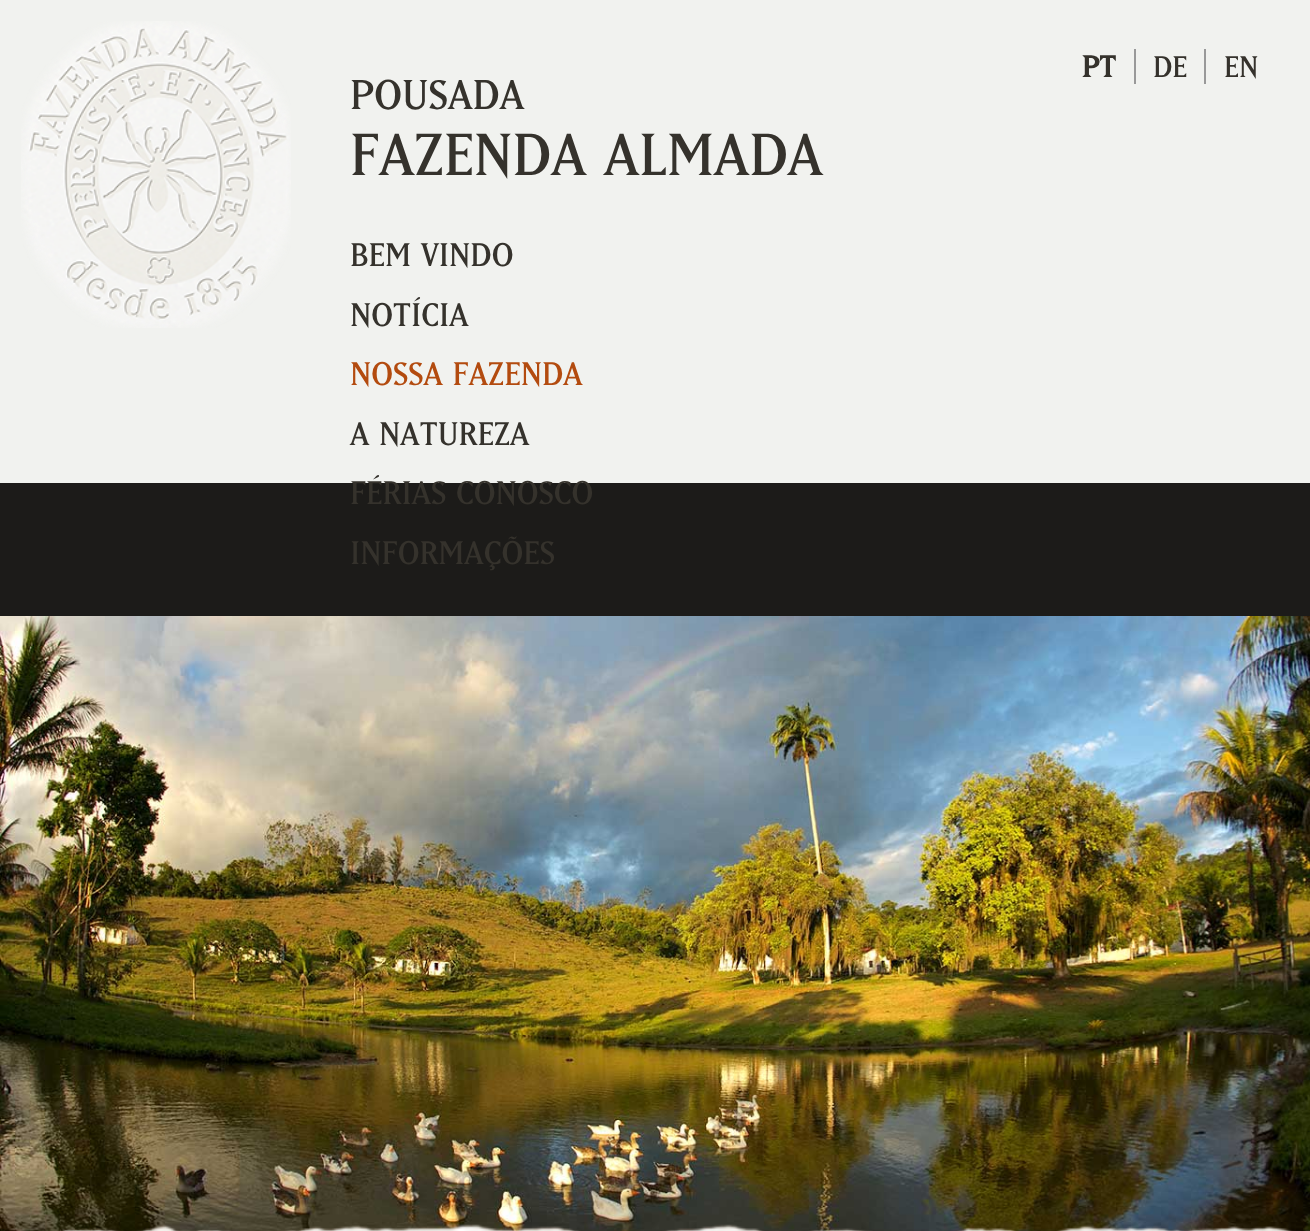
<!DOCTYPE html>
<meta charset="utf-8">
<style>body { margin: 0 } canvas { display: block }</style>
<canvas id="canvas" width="1310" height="1231"></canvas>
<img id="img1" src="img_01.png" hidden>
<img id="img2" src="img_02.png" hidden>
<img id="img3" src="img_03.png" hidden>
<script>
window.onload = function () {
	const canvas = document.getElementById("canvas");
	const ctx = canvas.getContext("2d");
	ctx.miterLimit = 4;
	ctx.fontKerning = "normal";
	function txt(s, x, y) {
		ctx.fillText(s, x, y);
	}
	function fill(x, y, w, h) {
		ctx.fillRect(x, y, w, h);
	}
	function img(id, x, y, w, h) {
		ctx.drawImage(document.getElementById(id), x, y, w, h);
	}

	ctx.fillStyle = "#1C1B19";
	fill(0, 0, 1310, 1231);
	ctx.fillStyle = "#F1F2EF";
	fill(0, 0, 1310, 483);
	img("img1", 21, 21, 270, 307);
	ctx.fillStyle = "#999999";
	fill(1134, 49, 2, 35);
	fill(1204, 49, 2, 35);
	img("img2", 0, 616, 1310, 615);
	img("img3", 60, 1224, 1250, 7);
	ctx.font = "bold 35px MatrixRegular";
	ctx.fillStyle = "#35322C";
	txt("PT", 1082, 77);
	ctx.font = "35px MatrixRegular";
	txt("DE", 1153, 77);
	txt("EN", 1224, 77);
	ctx.font = "49px MatrixRegular";
	txt("POUSADA", 350, 109);
	ctx.font = "70px MatrixRegular";
	txt("FAZENDA ALMADA", 350, 175);
	ctx.font = "38.5px MatrixRegular";
	txt("BEM VINDO", 350, 266);
	txt("NOTÍCIA", 350, 326);
	ctx.fillStyle = "#B34B0F";
	txt("NOSSA FAZENDA", 350, 385);
	ctx.fillStyle = "#35322C";
	txt("A NATUREZA", 350, 445);
	txt("FÉRIAS CONOSCO", 350, 504);
	txt("INFORMAÇÕES", 350, 564);
};
</script>
